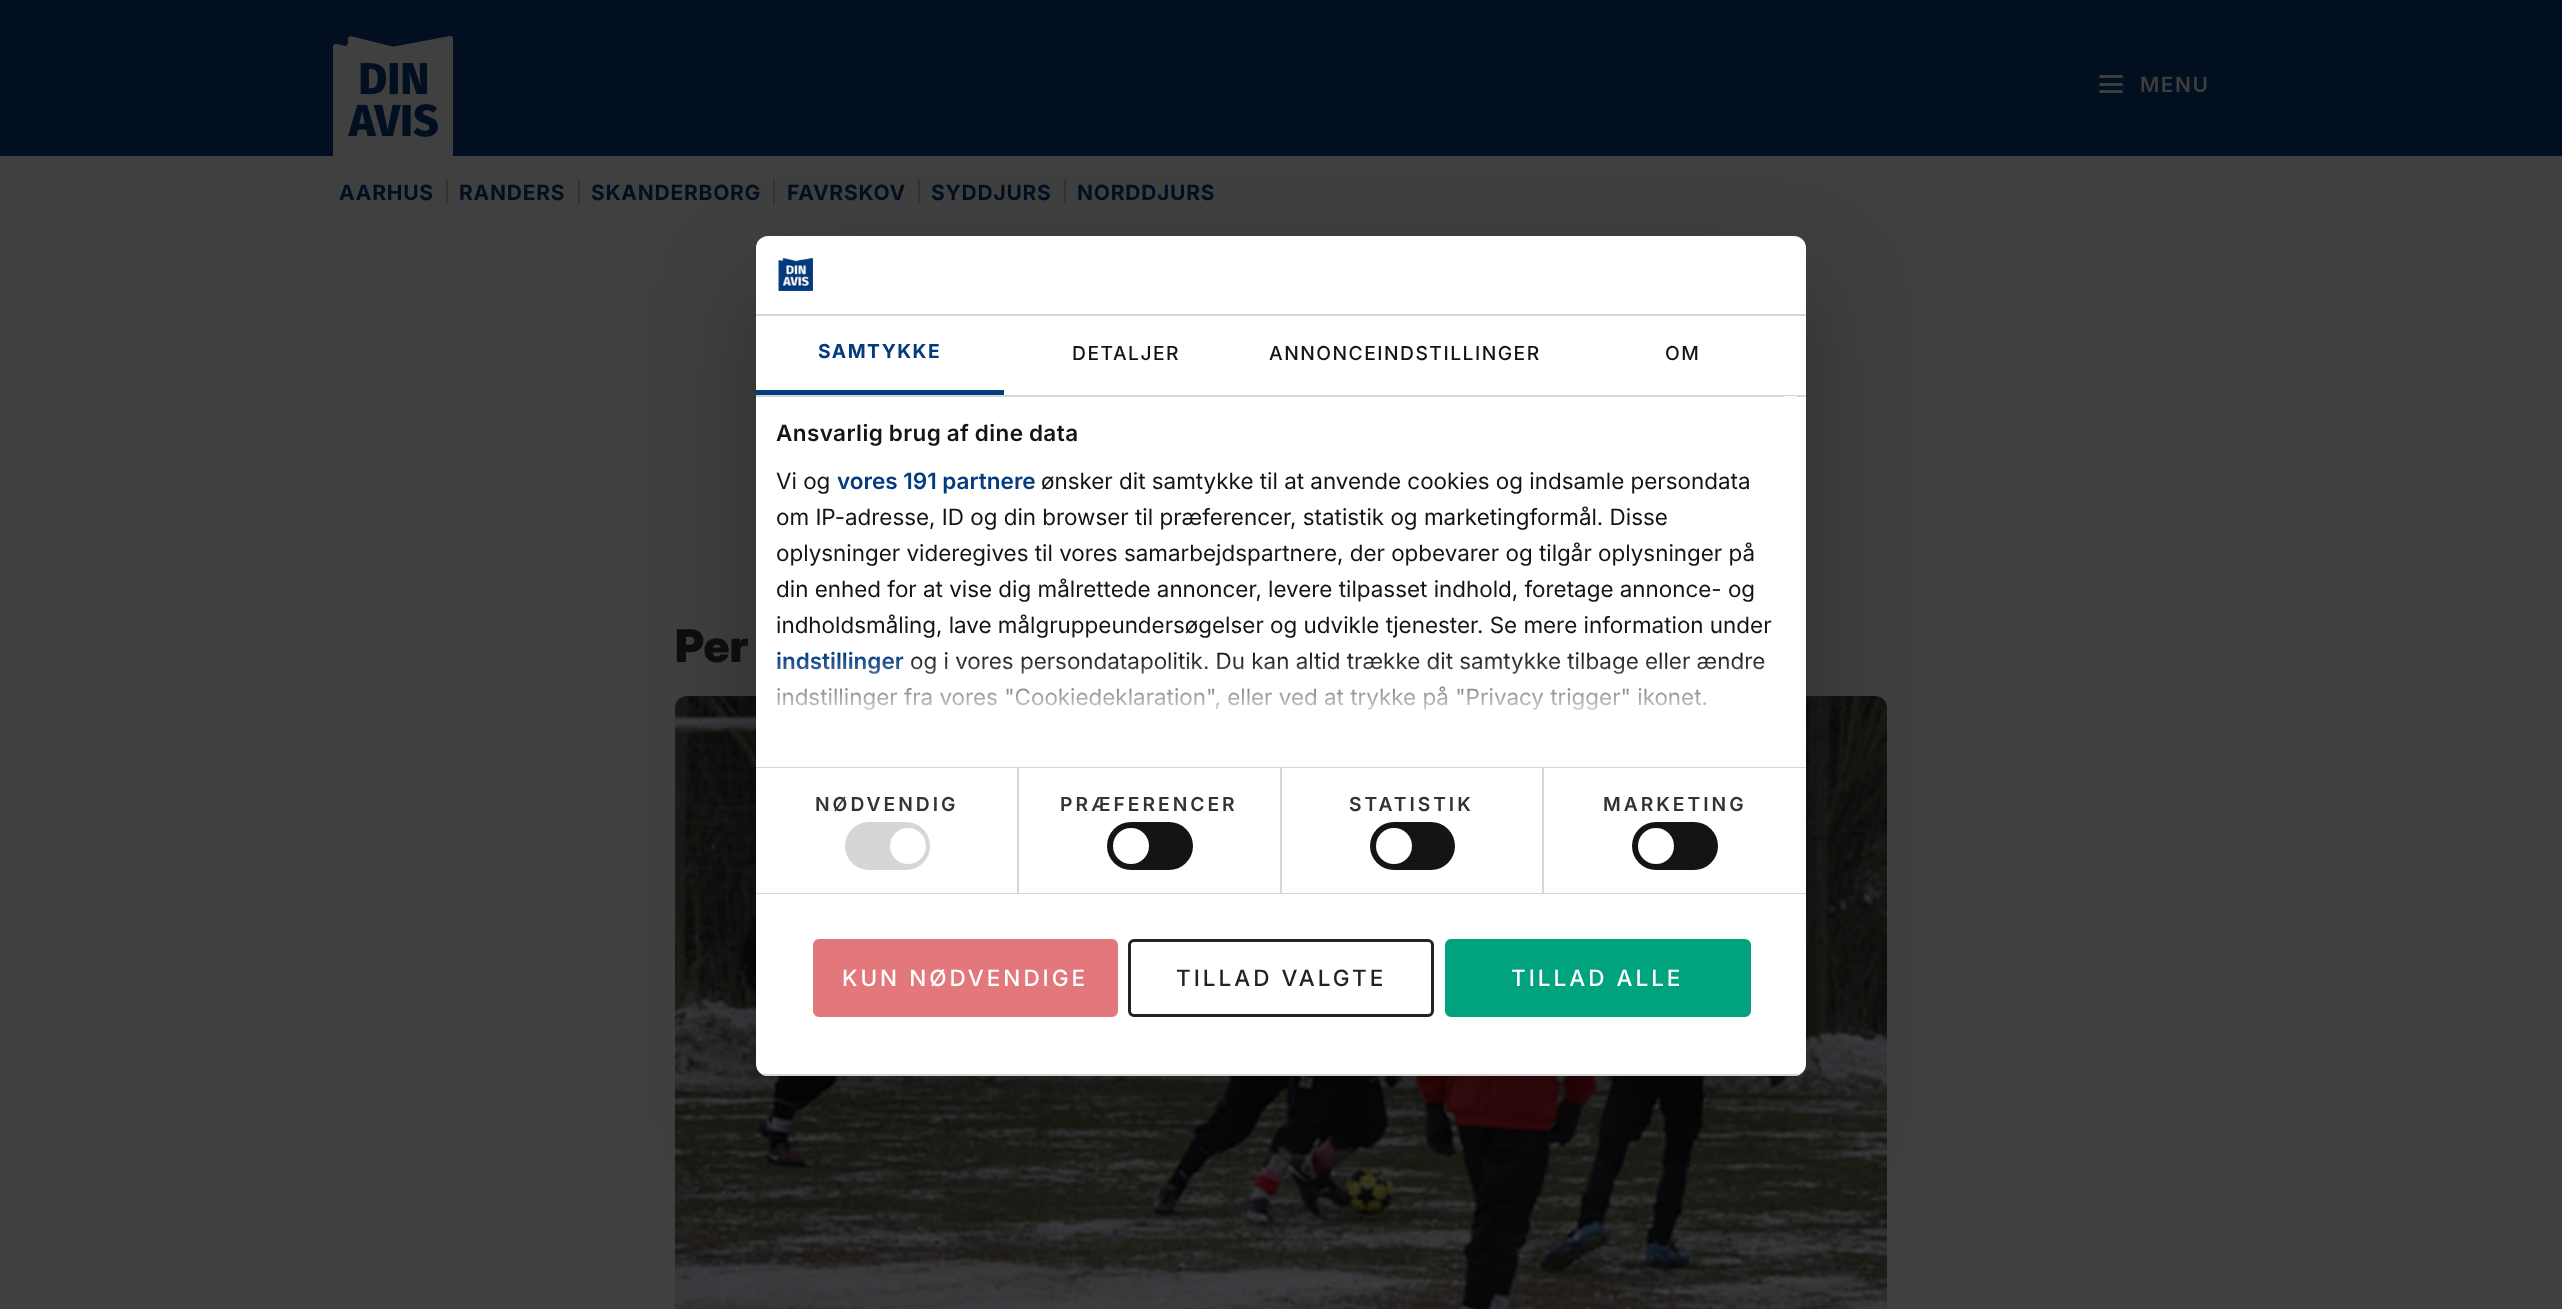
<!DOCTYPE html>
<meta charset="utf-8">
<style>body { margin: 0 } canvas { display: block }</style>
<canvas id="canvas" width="2562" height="1309"></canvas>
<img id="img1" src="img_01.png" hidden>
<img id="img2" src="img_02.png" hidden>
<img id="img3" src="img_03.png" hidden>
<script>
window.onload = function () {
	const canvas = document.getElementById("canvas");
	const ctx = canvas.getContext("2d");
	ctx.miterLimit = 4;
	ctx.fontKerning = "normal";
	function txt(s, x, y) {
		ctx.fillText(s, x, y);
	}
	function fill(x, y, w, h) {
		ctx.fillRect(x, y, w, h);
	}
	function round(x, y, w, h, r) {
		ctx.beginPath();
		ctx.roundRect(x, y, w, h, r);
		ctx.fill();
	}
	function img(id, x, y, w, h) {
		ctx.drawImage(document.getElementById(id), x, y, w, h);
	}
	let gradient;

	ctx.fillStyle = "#404040";
	fill(0, 0, 2562, 1309);
	ctx.fillStyle = "#010F20";
	fill(0, 0, 2562, 156);
	img("img1", 333, 36, 120, 120);
	ctx.fillStyle = "#3D3D3D";
	round(2099, 75, 24, 3, 1.5);
	round(2099, 83, 24, 3, 1.5);
	round(2099, 90, 24, 3, 1.5);
	ctx.fillStyle = "#333333";
	fill(446, 179, 2, 25);
	fill(578, 179, 2, 25);
	fill(773, 179, 2, 25);
	fill(918, 179, 2, 25);
	fill(1064, 179, 2, 25);
	img("img2", 675, 696, 1212, 613);
	ctx.fillStyle = "rgba(0, 0, 0, 0.3)";
	ctx.filter = "blur(51px)";
	ctx.beginPath();
	ctx.roundRect(756, 284, 1050, 840, 12);
	ctx.fill();
	ctx.filter = "none";
	ctx.fillStyle = "#FFFFFF";
	round(756, 236, 1050, 840, 12);
	ctx.fillStyle = "#D6D6D6";
	fill(756, 314, 1050, 2);
	img("img3", 778, 258, 35, 33);
	fill(756, 395, 1050, 2);
	ctx.fillStyle = "#023B7E";
	fill(756, 390, 248, 5);
	ctx.fillStyle = "#D6D6D6";
	fill(756, 767, 1050, 1);
	ctx.fillStyle = "#FFFFFF";
	fill(1784, 396, 13, 1);
	ctx.fillStyle = "#D6D6D6";
	fill(756, 893, 1050, 1);
	fill(1017, 768, 2, 125);
	round(845, 822, 85, 48, 24);
	ctx.fillStyle = "#FFFFFF";
	ctx.beginPath();
	ctx.arc(908, 846, 18, 0, Math.PI * 2);
	ctx.fill();
	ctx.fillStyle = "#D6D6D6";
	fill(1280, 768, 2, 125);
	ctx.fillStyle = "#141414";
	round(1107, 822, 86, 48, 24);
	ctx.fillStyle = "#FFFFFF";
	ctx.beginPath();
	ctx.arc(1131, 846, 18, 0, Math.PI * 2);
	ctx.fill();
	ctx.fillStyle = "#D6D6D6";
	fill(1542, 768, 2, 125);
	ctx.fillStyle = "#141414";
	round(1370, 822, 85, 48, 24);
	ctx.fillStyle = "#FFFFFF";
	ctx.beginPath();
	ctx.arc(1394, 846, 18, 0, Math.PI * 2);
	ctx.fill();
	ctx.fillStyle = "#141414";
	round(1632, 822, 86, 48, 24);
	ctx.fillStyle = "#FFFFFF";
	ctx.beginPath();
	ctx.arc(1656, 846, 18, 0, Math.PI * 2);
	ctx.fill();
	ctx.save();
	ctx.beginPath();
	ctx.roundRect(756, 236, 1050, 840, 12);
	ctx.clip();
	ctx.fillStyle = "#D6D6D6";
	fill(756, 1074, 1050, 2);
	ctx.restore();
	ctx.fillStyle = "#E2787C";
	ctx.beginPath();
	ctx.roundRect(814.5, 940.5, 302, 75, 4.5);
	ctx.fill();
	ctx.strokeStyle = "#E2787C";
	ctx.lineWidth = 3;
	ctx.stroke();
	ctx.beginPath();
	ctx.roundRect(1129.5, 940.5, 303, 75, 4.5);
	ctx.strokeStyle = "#222222";
	ctx.stroke();
	ctx.fillStyle = "#00A37D";
	ctx.beginPath();
	ctx.roundRect(1446.5, 940.5, 303, 75, 4.5);
	ctx.fill();
	ctx.strokeStyle = "#00A37D";
	ctx.stroke();
	ctx.letterSpacing = "1.5px";
	ctx.font = "600 21px Inter";
	ctx.fillStyle = "#3D3D3D";
	txt("MENU", 2140, 92);
	ctx.letterSpacing = "0.75px";
	ctx.font = "bold 21px Inter";
	ctx.fillStyle = "#010F20";
	txt("AARHUS", 339, 200);
	txt("RANDERS", 459, 200);
	txt("SKANDERBORG", 591, 200);
	txt("FAVRSKOV", 787, 200);
	txt("SYDDJURS", 931, 200);
	txt("NORDDJURS", 1077, 200);
	ctx.letterSpacing = "0px";
	ctx.font = "900 45px Inter";
	ctx.fillStyle = "#0D0D0D";
	txt("Per", 675, 662);
	ctx.letterSpacing = "1.5px";
	ctx.font = "bold 19.25px Inter";
	ctx.fillStyle = "#023B7E";
	txt("SAMTYKKE", 818, 358);
	ctx.font = "500 19.25px Inter";
	ctx.fillStyle = "#141414";
	txt("DETALJER", 1072, 360);
	txt("ANNONCEINDSTILLINGER", 1269, 360);
	txt("OM", 1665, 360);
	ctx.letterSpacing = "0.4px";
	ctx.wordSpacing = "-0.5px";
	ctx.font = "600 22.5px Inter";
	txt("Ansvarlig brug af dine data", 776, 441);
	ctx.letterSpacing = "0px";
	ctx.wordSpacing = "0px";
	ctx.font = "22.5px Inter";
	txt("Vi og", 776, 489);
	ctx.font = "600 22.5px Inter";
	ctx.fillStyle = "#023B7E";
	txt("vores 191 partnere", 837, 489);
	ctx.font = "22.5px Inter";
	ctx.fillStyle = "#141414";
	txt("ønsker dit samtykke til at anvende cookies og indsamle persondata", 1041, 489);
	txt("om IP-adresse, ID og din browser til præferencer, statistik og marketingformål. Disse", 776, 525);
	txt("oplysninger videregives til vores samarbejdspartnere, der opbevarer og tilgår oplysninger på", 776, 561);
	txt("din enhed for at vise dig målrettede annoncer, levere tilpasset indhold, foretage annonce- og", 776, 597);
	txt("indholdsmåling, lave målgruppeundersøgelser og udvikle tjenester. Se mere information under", 776, 633);
	ctx.font = "600 22.5px Inter";
	ctx.fillStyle = "#023B7E";
	txt("indstillinger", 776, 669);
	ctx.font = "22.5px Inter";
	ctx.fillStyle = "#141414";
	txt("og i vores persondatapolitik. Du kan altid trække dit samtykke tilbage eller ændre", 910, 669);
	txt("indstillinger fra vores \"Cookiedeklaration\", eller ved at trykke på \"Privacy trigger\" ikonet.", 776, 705);
	gradient = ctx.createLinearGradient(1266, 767, 1266, 654);
	gradient.addColorStop(0, "#FFFFFF");
	gradient.addColorStop(0.5, "rgba(255, 255, 255, 0.8)");
	gradient.addColorStop(1, "rgba(255, 255, 255, 0)");
	ctx.fillStyle = gradient;
	fill(777, 656, 987, 54);
	ctx.letterSpacing = "3px";
	ctx.font = "600 19.25px Inter";
	ctx.fillStyle = "#333333";
	txt("NØDVENDIG", 815, 811);
	txt("PRÆFERENCER", 1060, 811);
	txt("STATISTIK", 1349, 811);
	txt("MARKETING", 1603, 811);
	ctx.font = "500 22.5px Inter";
	ctx.fillStyle = "#FFFFFF";
	txt("KUN NØDVENDIGE", 842, 986);
	ctx.fillStyle = "#222222";
	txt("TILLAD VALGTE", 1176, 986);
	ctx.fillStyle = "#FFFFFF";
	txt("TILLAD ALLE", 1511, 986);
};
</script>
